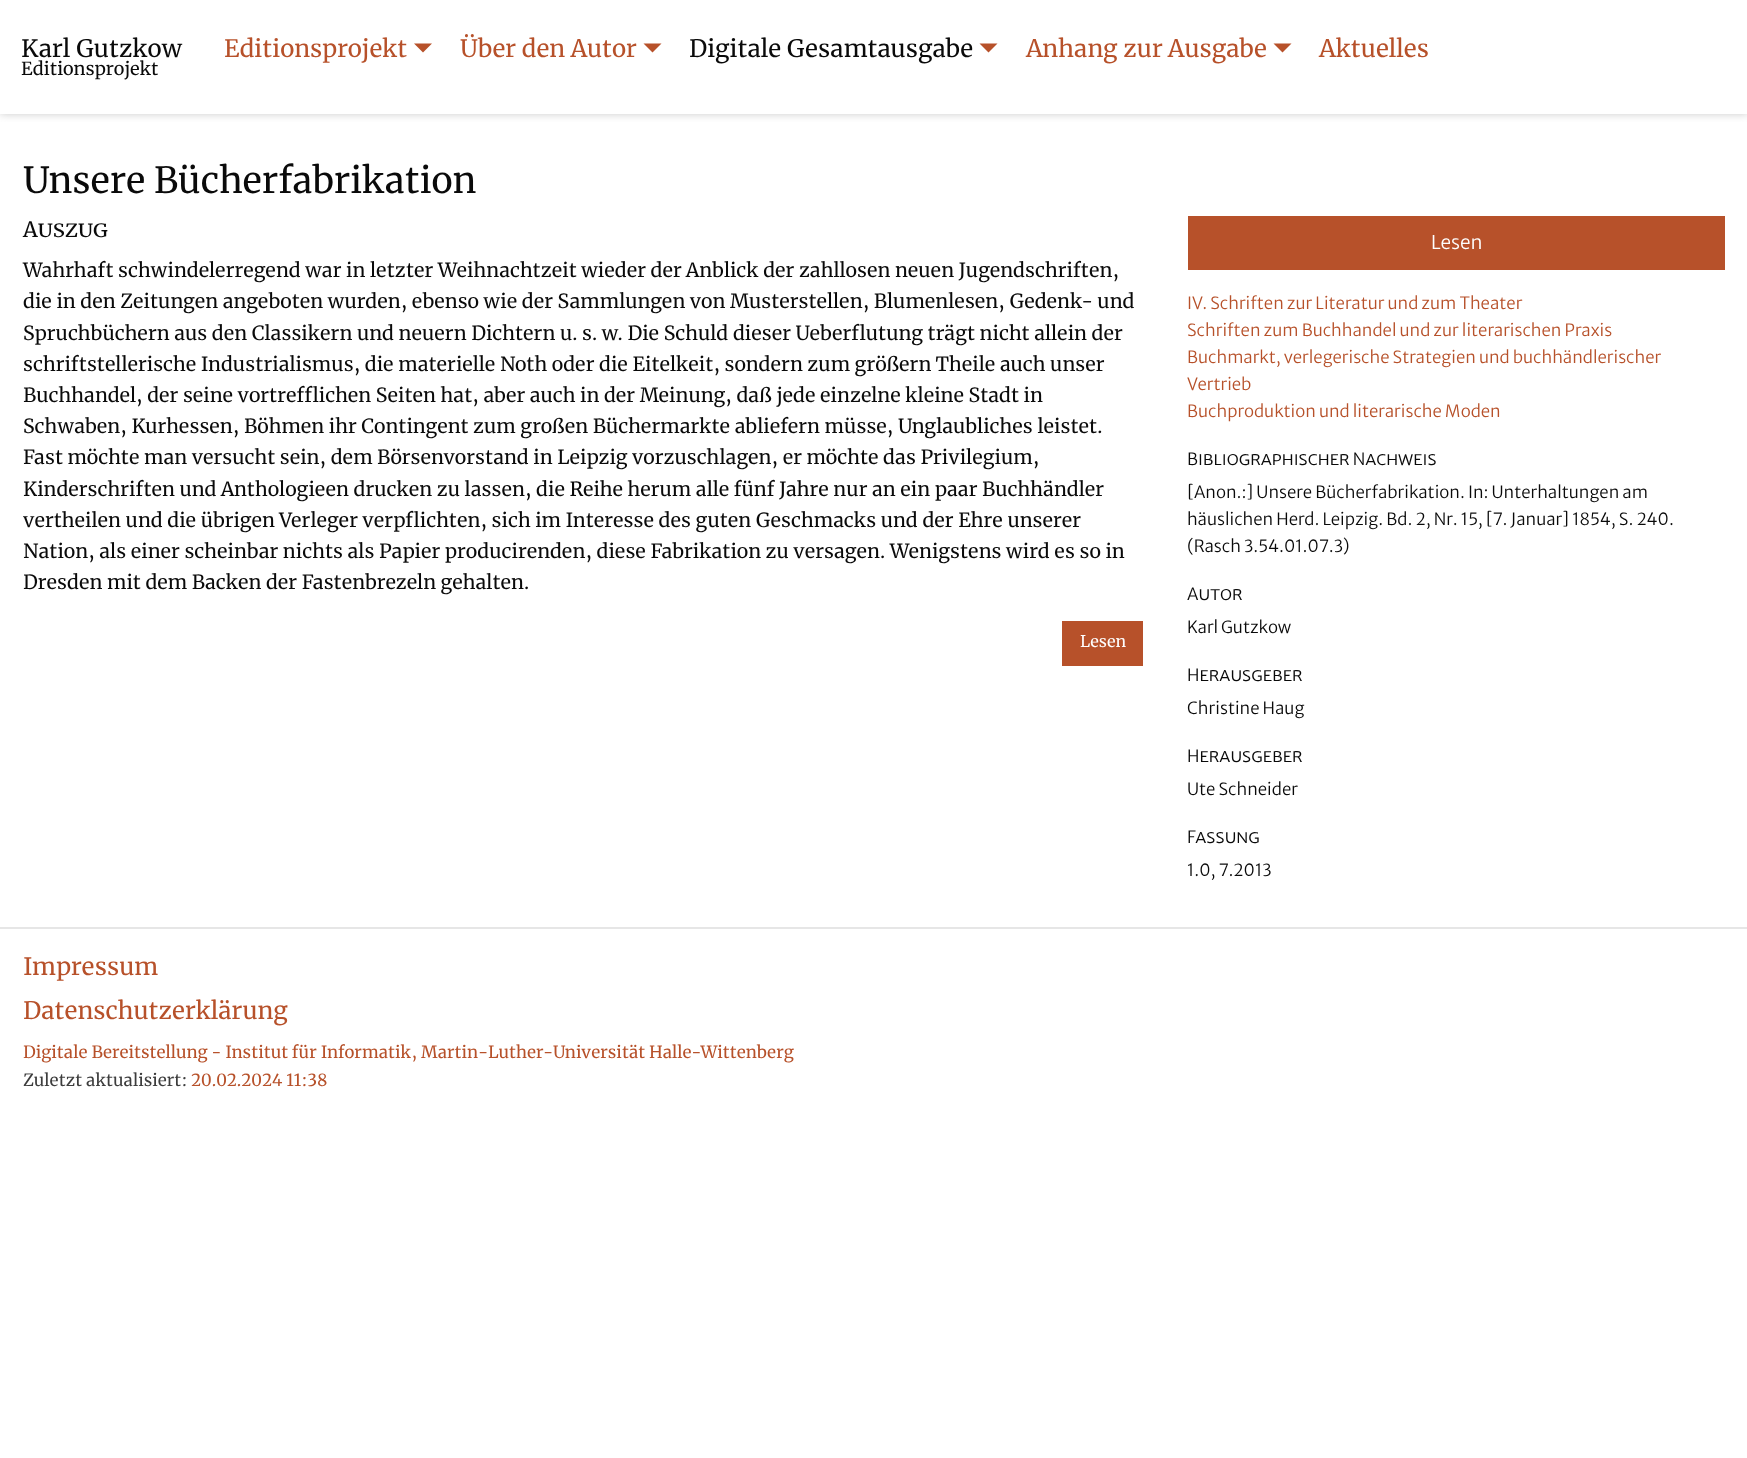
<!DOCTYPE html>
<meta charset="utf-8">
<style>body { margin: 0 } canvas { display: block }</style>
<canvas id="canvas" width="1747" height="1458"></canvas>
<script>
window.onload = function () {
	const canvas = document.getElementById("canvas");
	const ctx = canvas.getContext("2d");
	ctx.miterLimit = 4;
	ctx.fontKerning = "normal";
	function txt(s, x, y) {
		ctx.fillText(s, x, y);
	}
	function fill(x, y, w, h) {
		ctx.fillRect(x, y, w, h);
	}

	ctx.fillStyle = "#FFFFFF";
	fill(0, 0, 1747, 1458);
	ctx.save();
	ctx.beginPath();
	ctx.rect(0, 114, 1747, 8);
	ctx.clip();
	ctx.fillStyle = "#CACACA";
	ctx.filter = "blur(4px)";
	ctx.beginPath();
	ctx.rect(0, 0, 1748, 114);
	ctx.fill();
	ctx.filter = "none";
	ctx.restore();
	ctx.fillStyle = "#B7512A";
	ctx.beginPath();
	ctx.moveTo(414, 43.5);
	ctx.lineTo(432, 43.5);
	ctx.lineTo(423, 52.5);
	ctx.closePath();
	ctx.fill();
	ctx.beginPath();
	ctx.moveTo(643.5, 43.5);
	ctx.lineTo(661.5, 43.5);
	ctx.lineTo(652.5, 52.5);
	ctx.closePath();
	ctx.fill();
	ctx.beginPath();
	ctx.moveTo(979.5, 43.5);
	ctx.lineTo(997.5, 43.5);
	ctx.lineTo(988.5, 52.5);
	ctx.closePath();
	ctx.fill();
	ctx.beginPath();
	ctx.moveTo(1273.5, 43.5);
	ctx.lineTo(1291.5, 43.5);
	ctx.lineTo(1282.5, 52.5);
	ctx.closePath();
	ctx.fill();
	fill(1062, 621, 81, 45);
	fill(1188, 216, 537, 54);
	ctx.fillStyle = "#E6E6E6";
	fill(0, 927, 1747, 2);
	ctx.font = "24px Merriweather";
	ctx.fillStyle = "#0A0A0A";
	txt("Karl Gutzkow", 21, 57);
	ctx.font = "18px Merriweather";
	txt("Editionsprojekt", 21, 75);
	ctx.font = "24px Merriweather";
	ctx.fillStyle = "#B7512A";
	txt("Editionsprojekt", 224, 57);
	txt("Über den Autor", 460, 57);
	ctx.fillStyle = "#0A0A0A";
	txt("Digitale Gesamtausgabe", 689, 57);
	ctx.fillStyle = "#B7512A";
	txt("Anhang zur Ausgabe", 1026, 57);
	txt("Aktuelles", 1319, 57);
	ctx.font = "36px Merriweather";
	ctx.fillStyle = "#0A0A0A";
	txt("Unsere Bücherfabrikation", 23, 193);
	ctx.font = "21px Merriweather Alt";
	txt("Auszug", 23, 237);
	ctx.font = "19.5px Merriweather";
	txt("Wahrhaft schwindelerregend war in letzter Weihnachtzeit wieder der Anblick der zahllosen neuen Jugendschriften,", 23, 277);
	txt("die in den Zeitungen angeboten wurden, ebenso wie der Sammlungen von Musterstellen, Blumenlesen, Gedenk- und", 23, 308);
	txt("Spruchbüchern aus den Classikern und neuern Dichtern u. s. w. Die Schuld dieser Ueberflutung trägt nicht allein der", 23, 340);
	txt("schriftstellerische Industrialismus, die materielle Noth oder die Eitelkeit, sondern zum größern Theile auch unser", 23, 371);
	txt("Buchhandel, der seine vortrefflichen Seiten hat, aber auch in der Meinung, daß jede einzelne kleine Stadt in", 23, 402);
	txt("Schwaben, Kurhessen, Böhmen ihr Contingent zum großen Büchermarkte abliefern müsse, Unglaubliches leistet.", 23, 433);
	txt("Fast möchte man versucht sein, dem Börsenvorstand in Leipzig vorzuschlagen, er möchte das Privilegium,", 23, 464);
	txt("Kinderschriften und Anthologieen drucken zu lassen, die Reihe herum alle fünf Jahre nur an ein paar Buchhändler", 23, 496);
	txt("vertheilen und die übrigen Verleger verpflichten, sich im Interesse des guten Geschmacks und der Ehre unserer", 23, 527);
	txt("Nation, als einer scheinbar nichts als Papier producirenden, diese Fabrikation zu versagen. Wenigstens wird es so in", 23, 558);
	txt("Dresden mit dem Backen der Fastenbrezeln gehalten.", 23, 589);
	ctx.font = "16px Merriweather";
	ctx.fillStyle = "#FEFEFE";
	txt("Lesen", 1080, 647);
	ctx.font = "300 19px Merriweather Sans";
	txt("Lesen", 1431, 249);
	ctx.font = "300 16.8px Merriweather Sans";
	ctx.fillStyle = "#B7512A";
	txt("IV. Schriften zur Literatur und zum Theater", 1187, 309);
	txt("Schriften zum Buchhandel und zur literarischen Praxis", 1187, 336);
	txt("Buchmarkt, verlegerische Strategien und buchhändlerischer", 1187, 363);
	txt("Vertrieb", 1187, 390);
	txt("Buchproduktion und literarische Moden", 1187, 417);
	ctx.font = "300 16.8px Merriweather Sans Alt";
	ctx.fillStyle = "#0A0A0A";
	txt("Bibliographischer Nachweis", 1187, 465);
	ctx.font = "300 16.8px Merriweather Sans";
	txt("[Anon.:] Unsere Bücherfabrikation. In: Unterhaltungen am", 1187, 498);
	txt("häuslichen Herd. Leipzig. Bd. 2, Nr. 15, [7. Januar] 1854, S. 240.", 1187, 525);
	txt("(Rasch 3.54.01.07.3)", 1187, 552);
	ctx.font = "300 16.8px Merriweather Sans Alt";
	txt("Autor", 1187, 600);
	ctx.font = "300 16.8px Merriweather Sans";
	txt("Karl Gutzkow", 1187, 633);
	ctx.font = "300 16.8px Merriweather Sans Alt";
	txt("Herausgeber", 1187, 681);
	ctx.font = "300 16.8px Merriweather Sans";
	txt("Christine Haug", 1187, 714);
	ctx.font = "300 16.8px Merriweather Sans Alt";
	txt("Herausgeber", 1187, 762);
	ctx.font = "300 16.8px Merriweather Sans";
	txt("Ute Schneider", 1187, 795);
	ctx.font = "300 16.8px Merriweather Sans Alt";
	txt("Fassung", 1187, 843);
	ctx.font = "300 16.8px Merriweather Sans";
	txt("1.0, 7.2013", 1187, 876);
	ctx.font = "24px Merriweather";
	ctx.fillStyle = "#B7512A";
	txt("Impressum", 23, 975);
	txt("Datenschutzerklärung", 23, 1019);
	ctx.font = "16.8px Merriweather";
	txt("Digitale Bereitstellung - Institut für Informatik, Martin-Luther-Universität Halle-Wittenberg", 23, 1058);
	ctx.fillStyle = "#3D3D3D";
	txt("Zuletzt aktualisiert:", 23, 1086);
	ctx.fillStyle = "#B7512A";
	txt("20.02.2024 11:38", 191, 1086);
};
</script>
